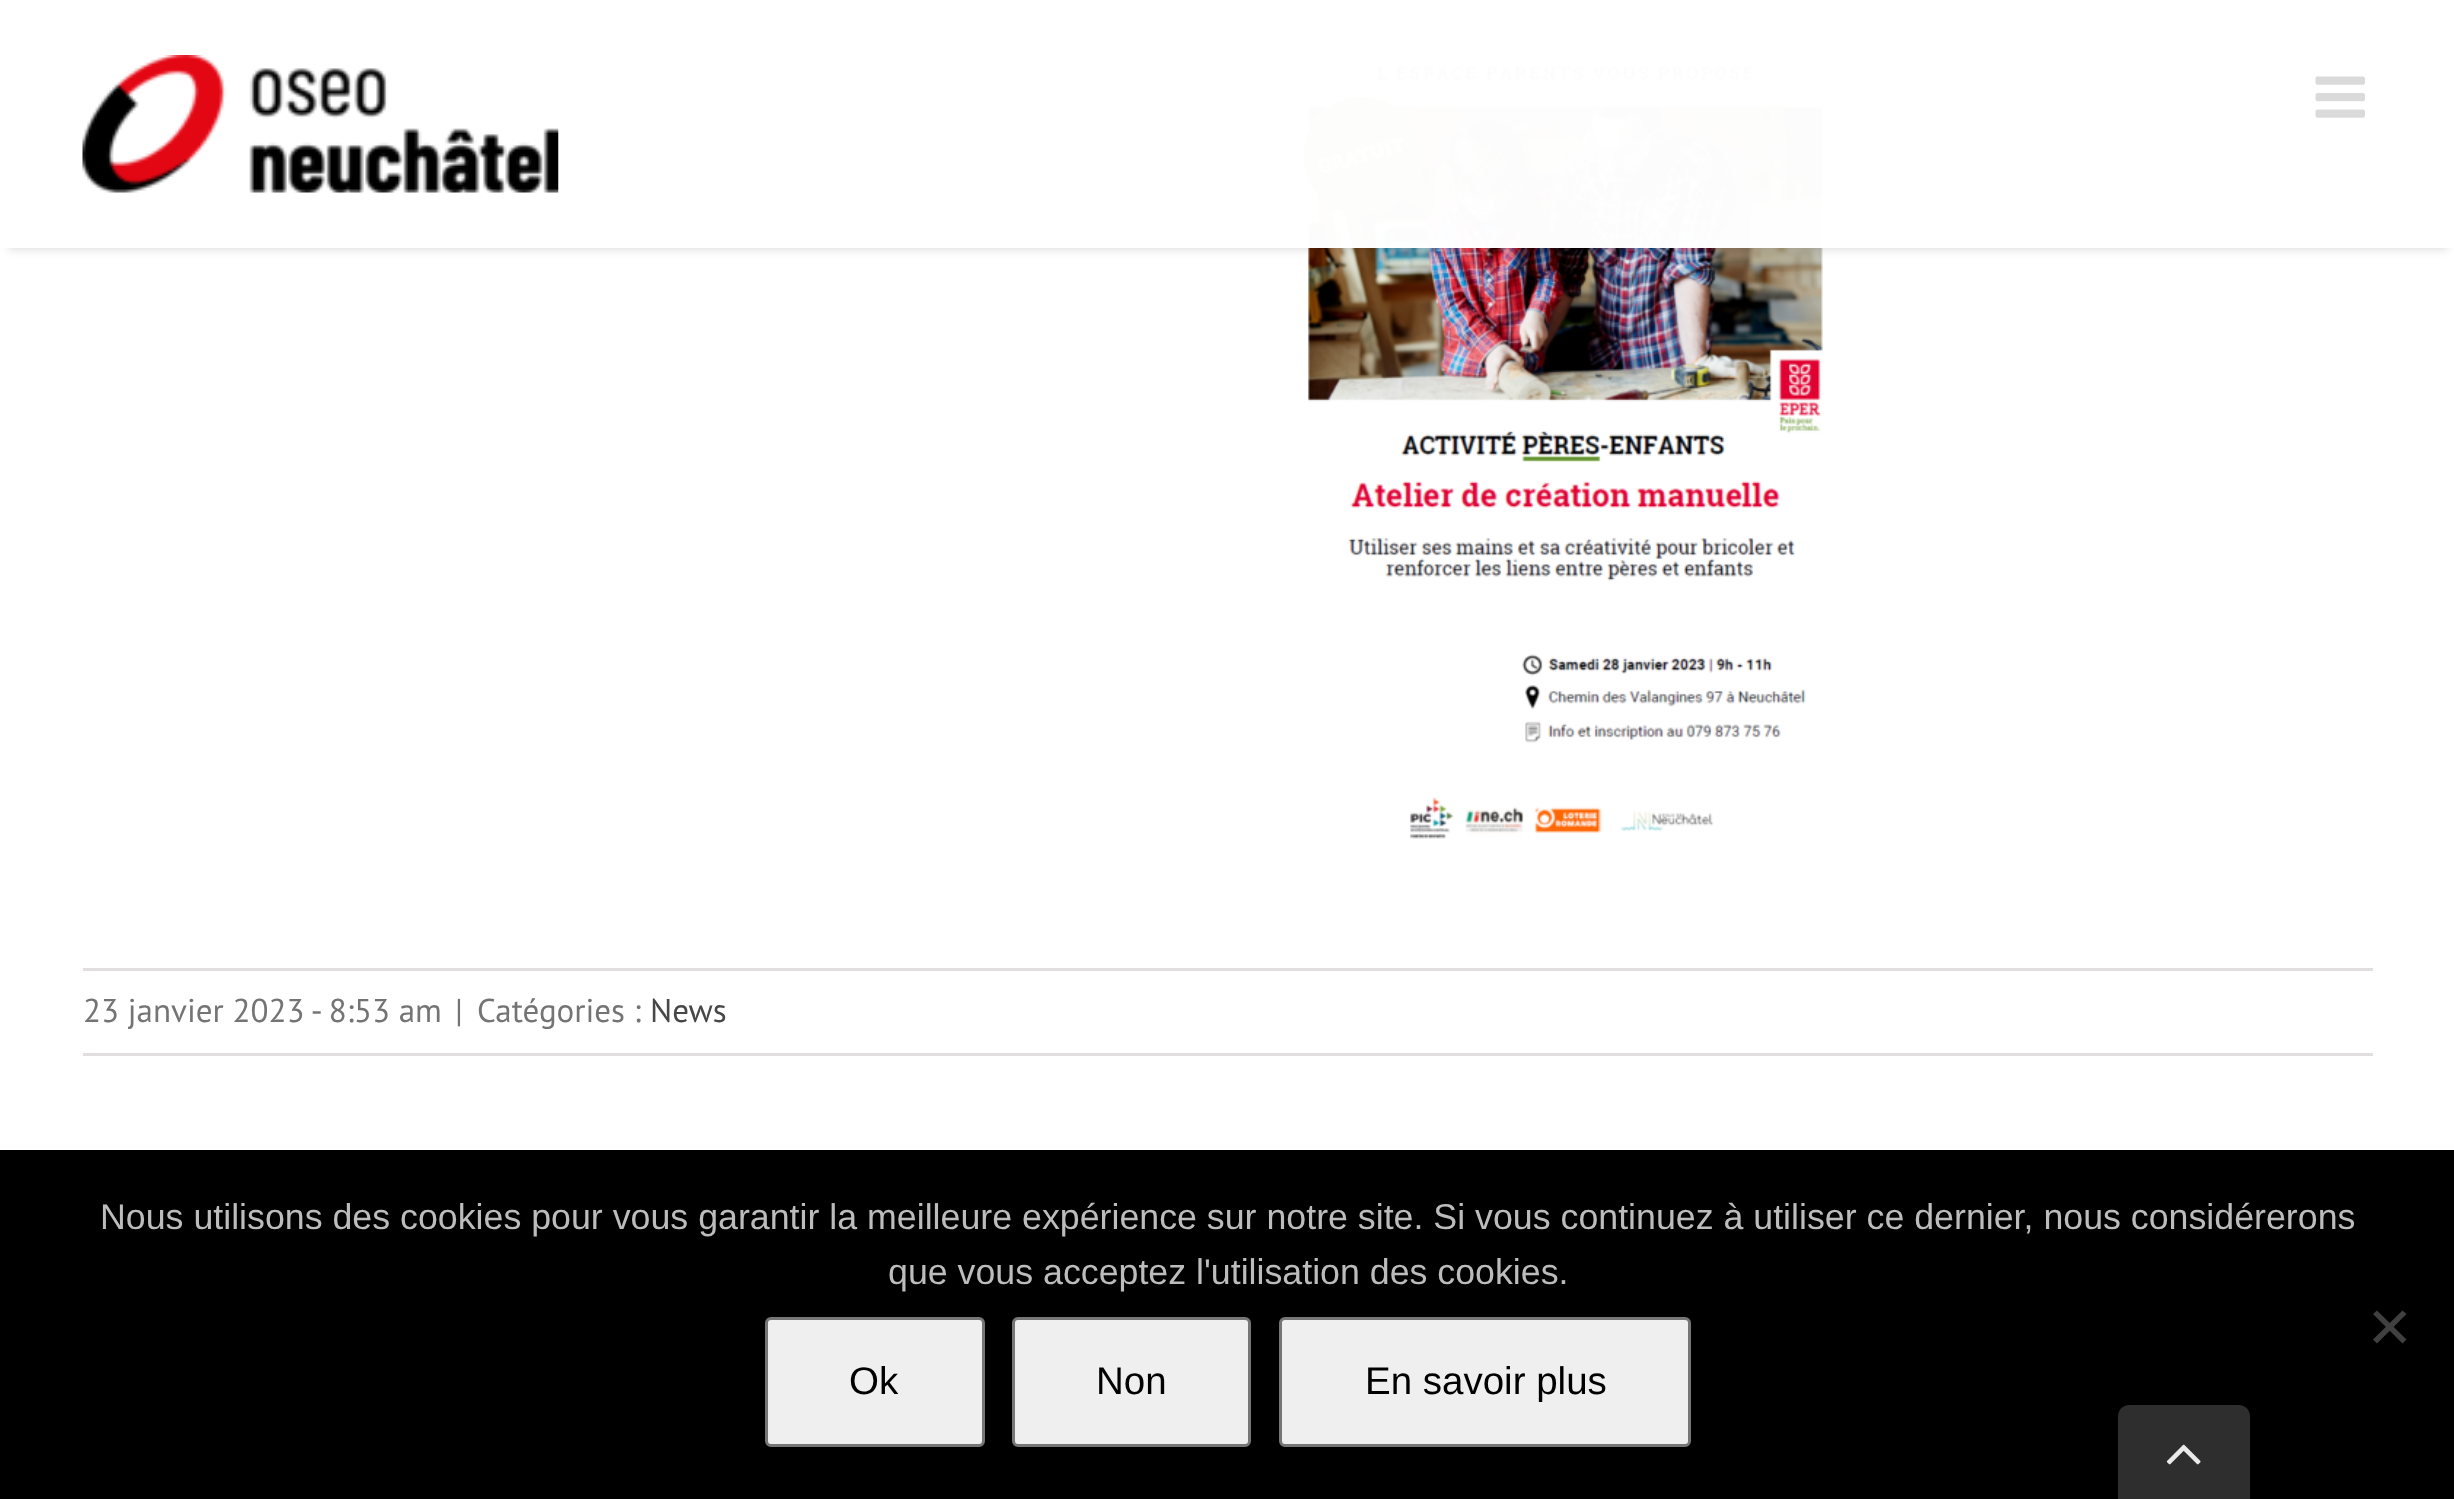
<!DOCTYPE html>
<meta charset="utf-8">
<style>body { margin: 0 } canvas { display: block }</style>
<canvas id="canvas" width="2454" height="1499"></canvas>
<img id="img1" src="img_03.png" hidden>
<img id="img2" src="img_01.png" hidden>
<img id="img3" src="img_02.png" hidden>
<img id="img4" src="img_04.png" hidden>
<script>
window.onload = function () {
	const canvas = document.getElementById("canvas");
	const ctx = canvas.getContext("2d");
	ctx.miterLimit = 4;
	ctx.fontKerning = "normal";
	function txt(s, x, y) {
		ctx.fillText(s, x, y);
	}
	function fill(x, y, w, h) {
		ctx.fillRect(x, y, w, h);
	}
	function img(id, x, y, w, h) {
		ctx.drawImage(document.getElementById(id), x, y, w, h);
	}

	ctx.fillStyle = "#FFFFFF";
	fill(0, 0, 2454, 1499);
	img("img1", 1301, 64, 522, 775);
	ctx.save();
	ctx.beginPath();
	ctx.moveTo(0, 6);
	ctx.lineTo(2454, 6);
	ctx.lineTo(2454, 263);
	ctx.lineTo(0, 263);
	ctx.closePath();
	ctx.moveTo(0, 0);
	ctx.lineTo(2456, 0);
	ctx.lineTo(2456, 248);
	ctx.lineTo(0, 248);
	ctx.closePath();
	ctx.clip("evenodd");
	ctx.fillStyle = "rgba(0, 0, 0, 0.12)";
	ctx.filter = "blur(4px)";
	ctx.beginPath();
	ctx.rect(8, 19, 2440, 231);
	ctx.fill();
	ctx.filter = "none";
	ctx.restore();
	ctx.fillStyle = "rgba(255, 255, 255, 0.99)";
	fill(5, 64, 2446, 184);
	img("img2", 82, 55, 477, 138);
	img("img3", 2315, 76, 50, 42);
	ctx.fillStyle = "#E0DEDE";
	fill(83, 968, 2290, 3);
	fill(83, 1053, 2290, 3);
	ctx.fillStyle = "#000000";
	fill(0, 1150, 2454, 349);
	ctx.fillStyle = "#404040";
	ctx.beginPath();
	ctx.moveTo(2402.5, 1310.5);
	ctx.lineTo(2406.5, 1314);
	ctx.lineTo(2377, 1343.5);
	ctx.lineTo(2373, 1339.5);
	ctx.closePath();
	ctx.fill();
	ctx.beginPath();
	ctx.moveTo(2373, 1314);
	ctx.lineTo(2377, 1310.5);
	ctx.lineTo(2406.5, 1339.5);
	ctx.lineTo(2402.5, 1343.5);
	ctx.closePath();
	ctx.fill();
	ctx.fillStyle = "#EFEFEF";
	ctx.beginPath();
	ctx.roundRect(766.5, 1318.5, 217, 127, 4.5);
	ctx.fill();
	ctx.strokeStyle = "#767676";
	ctx.lineWidth = 3;
	ctx.stroke();
	ctx.beginPath();
	ctx.roundRect(1013.5, 1318.5, 236, 127, 4.5);
	ctx.fill();
	ctx.stroke();
	ctx.beginPath();
	ctx.roundRect(1280.5, 1318.5, 409, 127, 4.5);
	ctx.fill();
	ctx.stroke();
	ctx.fillStyle = "#2E2E2E";
	ctx.beginPath();
	ctx.moveTo(2129, 1405);
	ctx.lineTo(2239, 1405);
	ctx.bezierCurveTo(2245, 1405, 2250, 1410, 2250, 1416);
	ctx.lineTo(2250, 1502);
	ctx.lineTo(2118, 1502);
	ctx.lineTo(2118, 1416);
	ctx.bezierCurveTo(2118, 1410, 2123, 1405, 2129, 1405);
	ctx.closePath();
	ctx.fill();
	img("img4", 2166, 1444, 35, 21);
	ctx.font = "33px PT Sans";
	ctx.fillStyle = "#747474";
	txt("23 janvier 2023 - 8:53 am", 83, 1022);
	txt("|", 455, 1022);
	txt("Catégories :", 477, 1022);
	ctx.fillStyle = "#474747";
	txt("News", 650, 1022);
	ctx.font = "35.75px Liberation Sans";
	ctx.fillStyle = "#BCBCBC";
	txt("Nous utilisons des cookies pour vous garantir la meilleure expérience sur notre site. Si vous continuez à utiliser ce dernier, nous considérerons", 100, 1229);
	txt("que vous acceptez l'utilisation des cookies.", 888, 1284);
	ctx.font = "38.5px Liberation Sans";
	ctx.fillStyle = "#000000";
	txt("Ok", 849, 1394);
	txt("Non", 1096, 1394);
	txt("En savoir plus", 1365, 1394);
};
</script>
